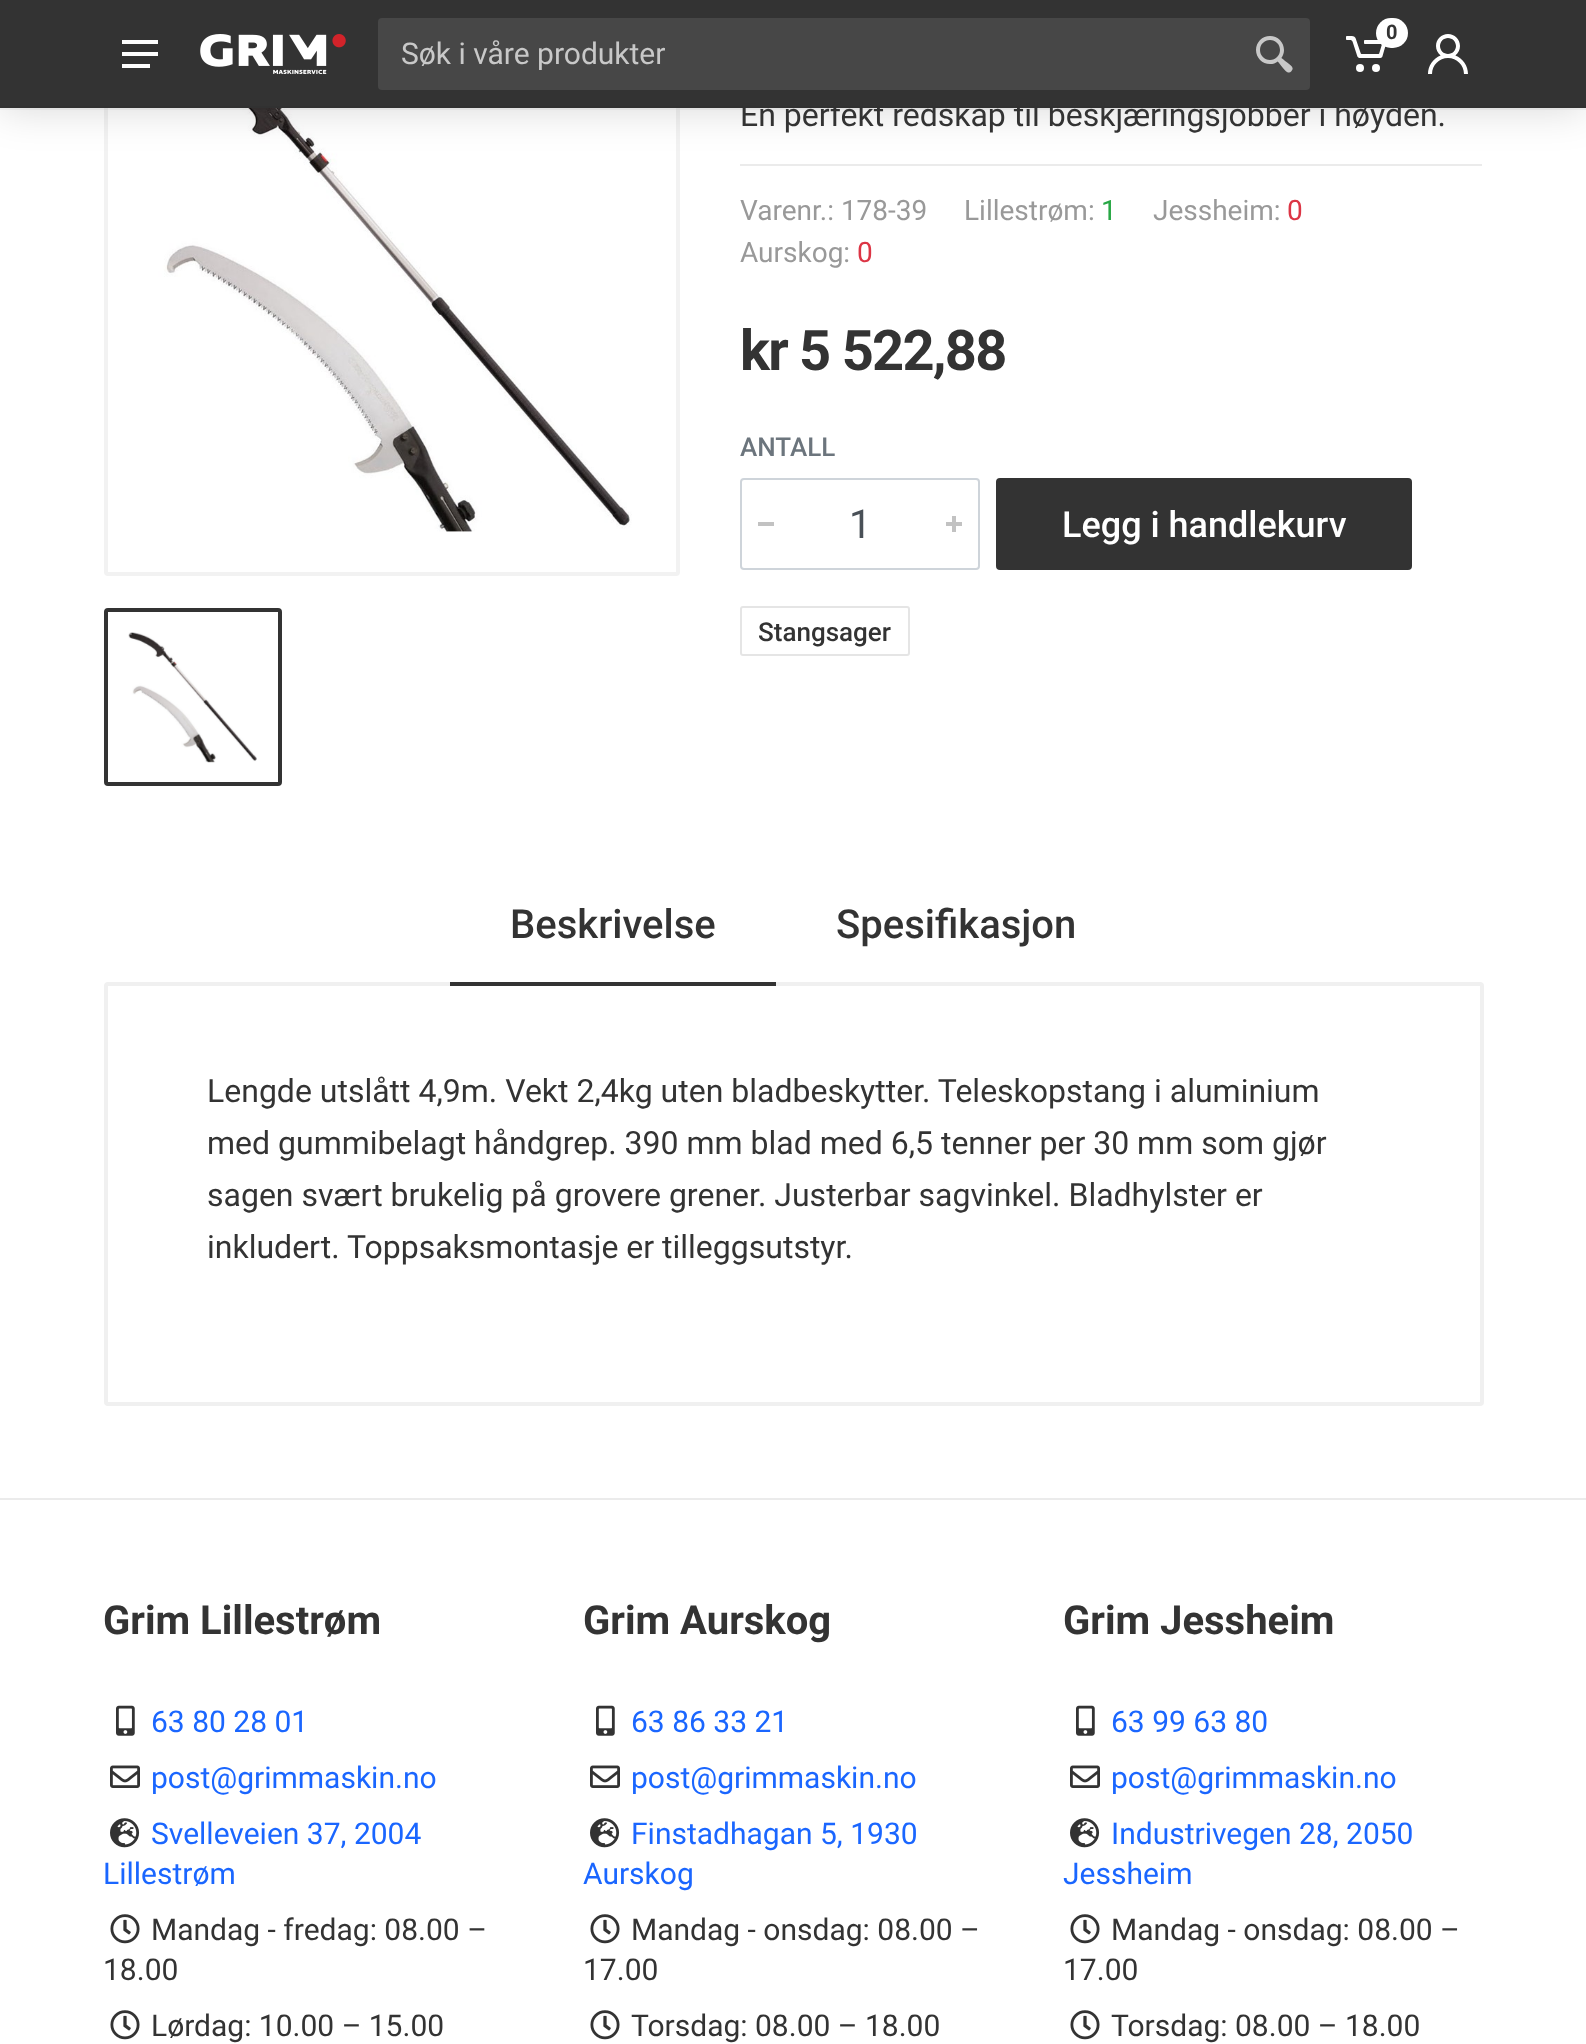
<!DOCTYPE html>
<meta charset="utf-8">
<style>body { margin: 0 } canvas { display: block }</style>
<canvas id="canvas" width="1586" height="2044"></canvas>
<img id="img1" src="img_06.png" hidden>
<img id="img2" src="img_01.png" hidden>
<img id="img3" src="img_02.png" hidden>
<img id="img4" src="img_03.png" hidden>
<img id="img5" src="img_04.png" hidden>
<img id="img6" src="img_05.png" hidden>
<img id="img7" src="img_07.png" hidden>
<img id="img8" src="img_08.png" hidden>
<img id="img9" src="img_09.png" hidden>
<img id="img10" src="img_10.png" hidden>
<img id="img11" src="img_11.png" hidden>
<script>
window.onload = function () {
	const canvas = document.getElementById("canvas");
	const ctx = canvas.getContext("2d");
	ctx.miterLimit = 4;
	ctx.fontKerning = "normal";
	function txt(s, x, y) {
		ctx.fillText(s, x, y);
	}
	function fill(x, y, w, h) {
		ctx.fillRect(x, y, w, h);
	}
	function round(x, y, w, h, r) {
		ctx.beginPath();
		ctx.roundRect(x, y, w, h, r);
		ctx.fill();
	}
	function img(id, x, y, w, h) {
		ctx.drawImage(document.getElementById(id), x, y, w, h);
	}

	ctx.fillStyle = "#FFFFFF";
	fill(0, 0, 1586, 2044);
	ctx.beginPath();
	ctx.roundRect(106, 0, 572, 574, 2);
	ctx.strokeStyle = "#F2F2F2";
	ctx.lineWidth = 4;
	ctx.stroke();
	img("img1", 147, 108, 485, 424);
	ctx.fillStyle = "#EBEBEB";
	fill(740, 164, 742, 2);
	ctx.fillStyle = "rgba(0, 0, 0, 0.15)";
	ctx.filter = "blur(20px)";
	ctx.beginPath();
	ctx.rect(0, 2, 1586, 108);
	ctx.fill();
	ctx.filter = "none";
	ctx.fillStyle = "rgba(0, 0, 0, 0.04)";
	fill(0, 108, 1586, 2);
	ctx.fillStyle = "#333333";
	fill(0, 0, 1586, 106);
	img("img2", 1346, 36, 40, 36);
	ctx.fillStyle = "#FFFFFF";
	round(1376, 18, 32, 30, 15);
	img("img3", 1428, 34, 40, 40);
	img("img4", 122, 40, 36, 28);
	img("img5", 200, 34, 146, 40);
	ctx.fillStyle = "#474747";
	round(378, 18, 932, 72, 4);
	img("img6", 1256, 36, 37, 37);
	ctx.beginPath();
	ctx.roundRect(106, 610, 174, 174, 2);
	ctx.strokeStyle = "#333333";
	ctx.stroke();
	img("img7", 128, 632, 129, 131);
	ctx.beginPath();
	ctx.roundRect(741, 479, 238, 90, 3);
	ctx.strokeStyle = "#CED4DA";
	ctx.lineWidth = 2;
	ctx.stroke();
	ctx.fillStyle = "#C2C2C2";
	fill(758, 522, 16, 4);
	fill(946, 522, 16, 4);
	fill(952, 516, 4, 16);
	ctx.fillStyle = "#333333";
	ctx.beginPath();
	ctx.roundRect(997, 479, 414, 90, 3);
	ctx.fill();
	ctx.strokeStyle = "#333333";
	ctx.stroke();
	ctx.beginPath();
	ctx.roundRect(741, 607, 168, 48, 2);
	ctx.strokeStyle = "#E5E5E5";
	ctx.stroke();
	ctx.beginPath();
	ctx.roundRect(106, 984, 1376, 420, 2);
	ctx.strokeStyle = "#F0F0F0";
	ctx.lineWidth = 4;
	ctx.stroke();
	fill(450, 982, 326, 4);
	ctx.fillStyle = "#EBEBEB";
	fill(0, 1498, 1586, 2);
	img("img8", 116, 1705, 19, 31);
	img("img9", 110, 1765, 30, 23);
	img("img10", 110, 1818, 30, 30);
	img("img11", 110, 1914, 30, 30);
	img("img11", 110, 2010, 30, 30);
	img("img8", 596, 1705, 19, 31);
	img("img9", 590, 1765, 30, 23);
	img("img10", 590, 1818, 30, 30);
	img("img11", 590, 1914, 30, 30);
	img("img11", 590, 2010, 30, 30);
	img("img8", 1076, 1705, 19, 31);
	img("img9", 1070, 1765, 30, 23);
	img("img10", 1070, 1818, 30, 30);
	img("img11", 1070, 1914, 30, 30);
	img("img11", 1070, 2010, 30, 30);
	ctx.font = "bold 20px Roboto";
	ctx.fillStyle = "#333333";
	txt("0", 1386, 39);
	ctx.font = "30px Roboto";
	ctx.fillStyle = "#C8C8C8";
	txt("Søk i våre produkter", 401, 64);
	ctx.font = "32px Roboto";
	ctx.fillStyle = "#333333";
	txt("En perfekt redskap til beskjæringsjobber i høyden.", 740, 126);
	ctx.fillStyle = "#313131";
	fill(0, 106, 1586, 2);
	ctx.font = "28px Roboto";
	ctx.fillStyle = "#999999";
	txt("Varenr.: 178-39", 740, 220);
	txt("Lillestrøm:", 964, 220);
	ctx.fillStyle = "#28A745";
	txt("1", 1101, 220);
	ctx.fillStyle = "#999999";
	txt("Jessheim:", 1153, 220);
	ctx.fillStyle = "#DC3545";
	txt("0", 1287, 220);
	ctx.fillStyle = "#999999";
	txt("Aurskog:", 740, 262);
	ctx.fillStyle = "#DC3545";
	txt("0", 857, 262);
	ctx.letterSpacing = "-1.75px";
	ctx.font = "bold 56px Roboto";
	ctx.fillStyle = "#333333";
	txt("kr 5 522,88", 740, 370);
	ctx.letterSpacing = "0px";
	ctx.font = "500 26px Roboto";
	ctx.fillStyle = "#6C757D";
	txt("ANTALL", 740, 456);
	ctx.font = "40px Roboto";
	ctx.fillStyle = "#495057";
	txt("1", 849, 538);
	ctx.font = "500 36px Roboto";
	ctx.fillStyle = "#FFFFFF";
	txt("Legg i handlekurv", 1062, 537);
	ctx.font = "500 26px Roboto";
	ctx.fillStyle = "#333333";
	txt("Stangsager", 758, 641);
	ctx.font = "500 40px Roboto";
	txt("Beskrivelse", 510, 938);
	txt("Spesifikasjon", 836, 938);
	ctx.font = "32px Roboto";
	txt("Lengde utslått 4,9m. Vekt 2,4kg uten bladbeskytter. Teleskopstang i aluminium", 207, 1102);
	txt("med gummibelagt håndgrep. 390 mm blad med 6,5 tenner per 30 mm som gjør", 207, 1154);
	txt("sagen svært brukelig på grovere grener. Justerbar sagvinkel. Bladhylster er", 207, 1206);
	txt("inkludert. Toppsaksmontasje er tilleggsutstyr.", 207, 1258);
	ctx.font = "bold 40px Roboto";
	txt("Grim Lillestrøm", 103, 1634);
	ctx.font = "30px Roboto";
	ctx.fillStyle = "#1A66FF";
	txt("63 80 28 01", 151, 1732);
	txt("post@grimmaskin.no", 151, 1788);
	txt("Svelleveien 37, 2004", 151, 1844);
	txt("Lillestrøm", 103, 1884);
	ctx.fillStyle = "#333333";
	txt("Mandag - fredag: 08.00 –", 151, 1940);
	txt("18.00", 103, 1980);
	txt("Lørdag: 10.00 – 15.00", 151, 2036);
	ctx.font = "bold 40px Roboto";
	txt("Grim Aurskog", 583, 1634);
	ctx.font = "30px Roboto";
	ctx.fillStyle = "#1A66FF";
	txt("63 86 33 21", 631, 1732);
	txt("post@grimmaskin.no", 631, 1788);
	txt("Finstadhagan 5, 1930", 631, 1844);
	txt("Aurskog", 583, 1884);
	ctx.fillStyle = "#333333";
	txt("Mandag - onsdag: 08.00 –", 631, 1940);
	txt("17.00", 583, 1980);
	txt("Torsdag: 08.00 – 18.00", 631, 2036);
	ctx.font = "bold 40px Roboto";
	txt("Grim Jessheim", 1063, 1634);
	ctx.font = "30px Roboto";
	ctx.fillStyle = "#1A66FF";
	txt("63 99 63 80", 1111, 1732);
	txt("post@grimmaskin.no", 1111, 1788);
	txt("Industrivegen 28, 2050", 1111, 1844);
	txt("Jessheim", 1063, 1884);
	ctx.fillStyle = "#333333";
	txt("Mandag - onsdag: 08.00 –", 1111, 1940);
	txt("17.00", 1063, 1980);
	txt("Torsdag: 08.00 – 18.00", 1111, 2036);
};
</script>
